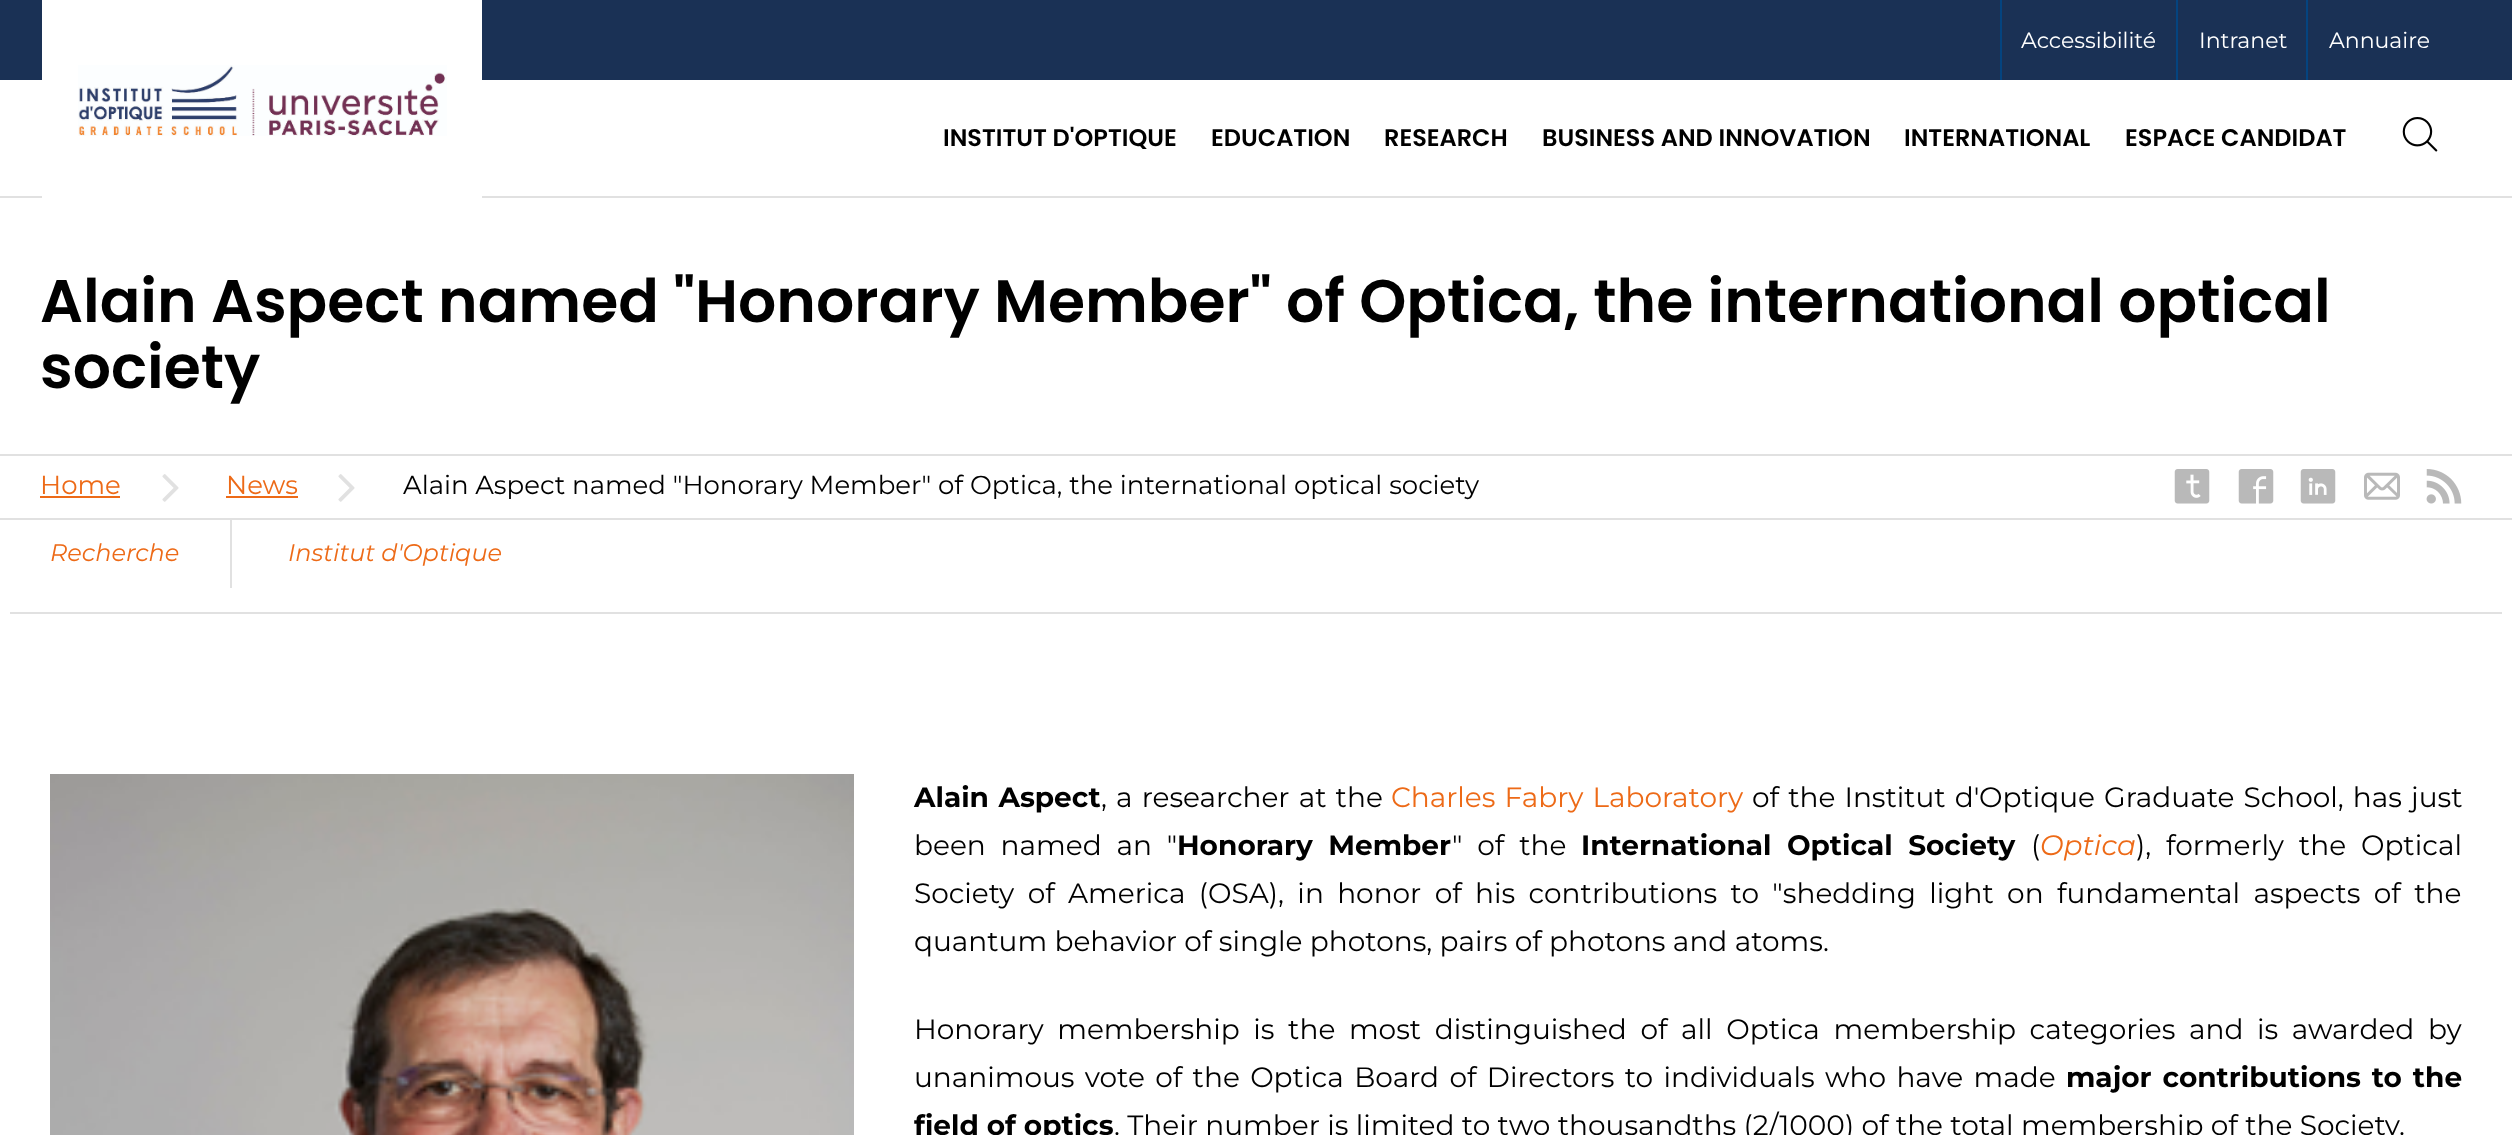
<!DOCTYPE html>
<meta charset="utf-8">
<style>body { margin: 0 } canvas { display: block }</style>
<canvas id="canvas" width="2512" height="1135"></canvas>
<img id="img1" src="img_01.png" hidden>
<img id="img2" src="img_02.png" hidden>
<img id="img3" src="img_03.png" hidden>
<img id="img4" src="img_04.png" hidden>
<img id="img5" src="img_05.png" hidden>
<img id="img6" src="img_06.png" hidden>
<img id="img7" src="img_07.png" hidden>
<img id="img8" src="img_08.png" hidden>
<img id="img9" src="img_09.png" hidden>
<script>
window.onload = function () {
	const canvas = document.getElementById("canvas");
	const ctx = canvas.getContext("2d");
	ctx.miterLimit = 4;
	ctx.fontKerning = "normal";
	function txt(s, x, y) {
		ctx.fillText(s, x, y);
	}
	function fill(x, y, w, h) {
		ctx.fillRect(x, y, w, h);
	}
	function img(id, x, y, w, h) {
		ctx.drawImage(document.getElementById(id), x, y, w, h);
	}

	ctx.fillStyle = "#FFFFFF";
	fill(0, 0, 2512, 1135);
	ctx.fillStyle = "#1A3155";
	fill(0, 0, 2512, 80);
	ctx.fillStyle = "#044480";
	fill(2000, 0, 2, 80);
	fill(2176, 0, 2, 80);
	fill(2306, 0, 2, 80);
	ctx.fillStyle = "#E1E1E1";
	fill(0, 196, 2512, 2);
	ctx.fillStyle = "#FFFFFF";
	fill(42, 0, 440, 198);
	img("img1", 78, 65, 369, 71);
	img("img2", 2402, 117, 36, 35);
	ctx.fillStyle = "#E1E1E1";
	fill(0, 454, 2512, 2);
	fill(0, 518, 2512, 2);
	ctx.fillStyle = "#ED6A17";
	fill(40, 496, 80, 2);
	img("img3", 162, 474, 17, 28);
	fill(226, 496, 72, 2);
	img("img3", 338, 474, 17, 28);
	img("img4", 2174, 469, 36, 35);
	img("img5", 2238, 469, 36, 35);
	img("img6", 2300, 469, 36, 35);
	img("img7", 2364, 472, 36, 28);
	img("img8", 2426, 469, 36, 35);
	ctx.fillStyle = "#E1E1E1";
	fill(10, 612, 2492, 2);
	fill(230, 520, 2, 68);
	img("img9", 50, 774, 804, 361);
	ctx.font = "22px Montserrat";
	ctx.fillStyle = "#FFFFFF";
	txt("Accessibilité", 2021, 48);
	txt("Intranet", 2199, 48);
	txt("Annuaire", 2329, 48);
	ctx.font = "600 24px Poppins";
	ctx.fillStyle = "#000000";
	txt("INSTITUT D'OPTIQUE", 943, 146);
	txt("EDUCATION", 1211, 146);
	txt("RESEARCH", 1384, 146);
	txt("BUSINESS AND INNOVATION", 1542, 146);
	txt("INTERNATIONAL", 1904, 146);
	txt("ESPACE CANDIDAT", 2125, 146);
	ctx.font = "600 60px Poppins";
	txt("Alain Aspect named \"Honorary Member\" of Optica, the international optical", 40, 322);
	txt("society", 40, 388);
	ctx.font = "26px Montserrat";
	ctx.fillStyle = "#ED6A17";
	txt("Home", 40, 494);
	txt("News", 226, 494);
	ctx.fillStyle = "#000000";
	txt("Alain Aspect named \"Honorary Member\" of Optica, the international optical society", 403, 494);
	ctx.font = "italic 24px Montserrat";
	ctx.fillStyle = "#ED6A17";
	txt("Recherche", 50, 561);
	txt("Institut d'Optique", 288, 561);
	ctx.wordSpacing = "1.75px";
	ctx.font = "bold 28px Montserrat";
	ctx.fillStyle = "#000000";
	txt("Alain Aspect", 914, 807);
	ctx.font = "28px Montserrat";
	txt(", a researcher at the", 1101, 807);
	ctx.fillStyle = "#ED6A17";
	txt("Charles Fabry Laboratory", 1391, 807);
	ctx.fillStyle = "#000000";
	txt("of the Institut d'Optique Graduate School, has just", 1752, 807);
	ctx.wordSpacing = "7.5px";
	txt("been named an \"", 914, 855);
	ctx.font = "bold 28px Montserrat";
	txt("Honorary Member", 1177, 855);
	ctx.font = "28px Montserrat";
	txt("\" of the", 1452, 855);
	ctx.font = "bold 28px Montserrat";
	txt("International Optical Society", 1581, 855);
	ctx.wordSpacing = "0px";
	ctx.font = "28px Montserrat";
	txt("(", 2031, 855);
	ctx.font = "italic 28px Montserrat";
	ctx.fillStyle = "#ED6A17";
	txt("Optica", 2040, 855);
	ctx.wordSpacing = "7.5px";
	ctx.font = "28px Montserrat";
	ctx.fillStyle = "#000000";
	txt("), formerly the Optical", 2136, 855);
	ctx.wordSpacing = "6px";
	txt("Society of America (OSA), in honor of his contributions to \"shedding light on fundamental aspects of the", 914, 903);
	ctx.wordSpacing = "0px";
	txt("quantum behavior of single photons, pairs of photons and atoms.", 914, 951);
	ctx.wordSpacing = "6.25px";
	txt("Honorary membership is the most distinguished of all Optica membership categories and is awarded by", 914, 1039);
	ctx.wordSpacing = "3px";
	txt("unanimous vote of the Optica Board of Directors to individuals who have made", 914, 1087);
	ctx.font = "bold 28px Montserrat";
	txt("major contributions to the", 2066, 1087);
	ctx.wordSpacing = "0px";
	txt("field of optics", 914, 1135);
	ctx.font = "28px Montserrat";
	txt(". Their number is limited to two thousandths (2/1000) of the total membership of the Society.", 1114, 1135);
};
</script>
